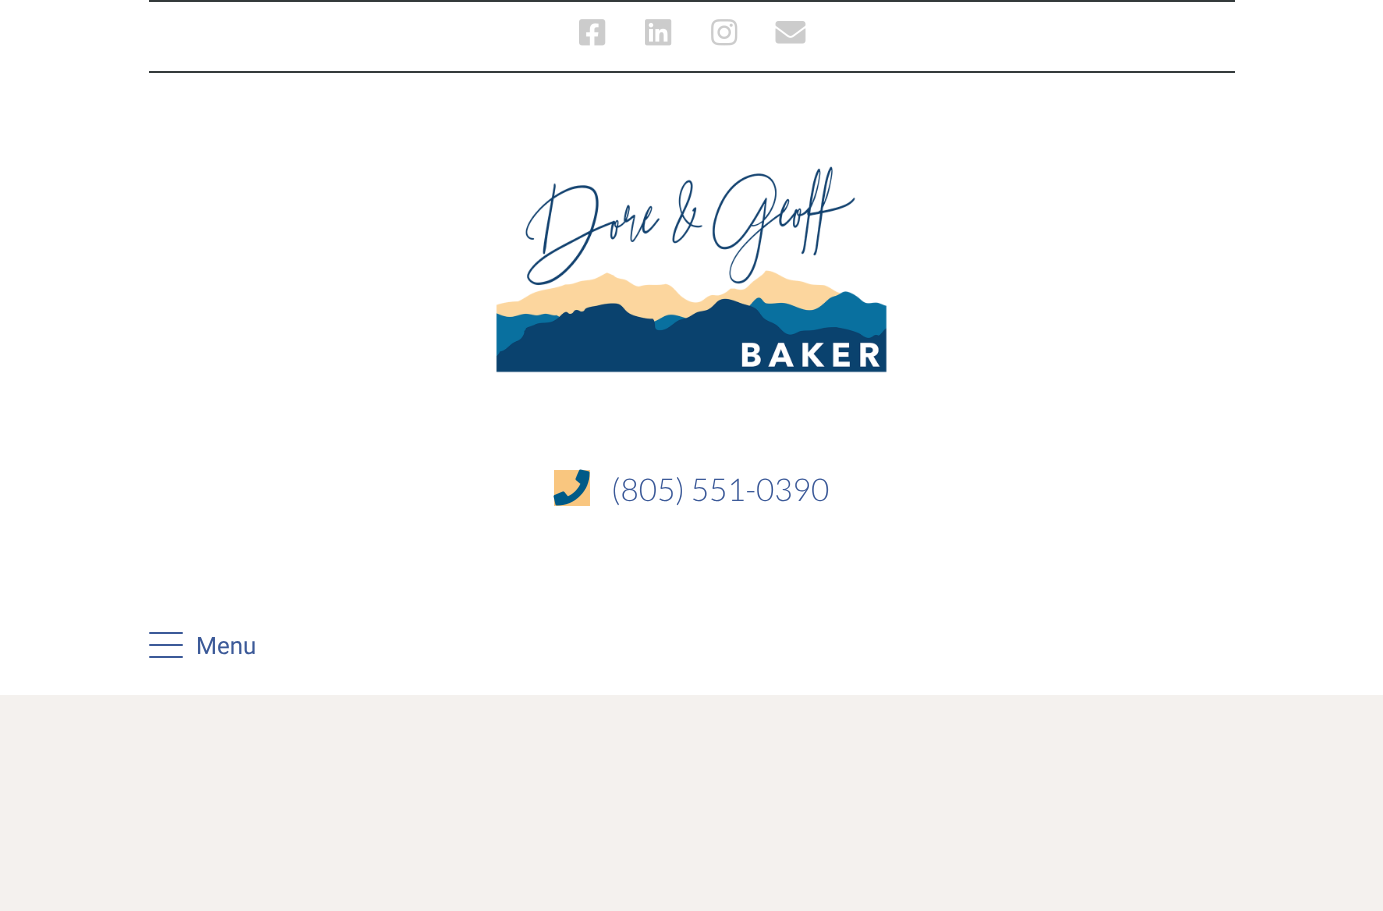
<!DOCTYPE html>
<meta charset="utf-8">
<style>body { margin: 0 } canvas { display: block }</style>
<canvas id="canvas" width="1383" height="911"></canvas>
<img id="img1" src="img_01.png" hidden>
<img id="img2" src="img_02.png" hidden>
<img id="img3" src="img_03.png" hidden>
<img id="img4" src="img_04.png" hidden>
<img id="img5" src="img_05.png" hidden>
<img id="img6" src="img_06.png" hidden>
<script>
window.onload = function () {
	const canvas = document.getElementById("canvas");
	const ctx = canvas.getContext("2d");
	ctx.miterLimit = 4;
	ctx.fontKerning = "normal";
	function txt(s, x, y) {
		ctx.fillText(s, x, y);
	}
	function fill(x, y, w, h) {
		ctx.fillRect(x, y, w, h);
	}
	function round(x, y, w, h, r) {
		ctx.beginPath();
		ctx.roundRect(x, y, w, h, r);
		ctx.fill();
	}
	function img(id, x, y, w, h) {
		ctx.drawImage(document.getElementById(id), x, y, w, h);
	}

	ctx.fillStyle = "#F4F1EE";
	fill(0, 0, 1383, 911);
	ctx.fillStyle = "#FFFFFF";
	fill(0, 0, 1383, 695);
	ctx.fillStyle = "#343A3B";
	fill(149, 71, 1086, 2);
	fill(149, 0, 1086, 2);
	img("img1", 579, 19, 27, 27);
	img("img2", 645, 19, 27, 27);
	img("img3", 711, 19, 27, 27);
	img("img4", 775, 21, 31, 23);
	img("img5", 496, 166, 391, 207);
	ctx.fillStyle = "#F9C67F";
	fill(554, 470, 36, 36);
	img("img6", 553, 469, 37, 37);
	ctx.fillStyle = "#3B5998";
	round(149, 644, 34, 2, 1);
	round(149, 632, 34, 2, 1);
	round(149, 656, 34, 2, 1);
	ctx.font = "300 31.5px Lato";
	txt("(805) 551-0390", 611, 501);
	ctx.font = "24px Roboto";
	txt("Menu", 196, 654);
};
</script>
